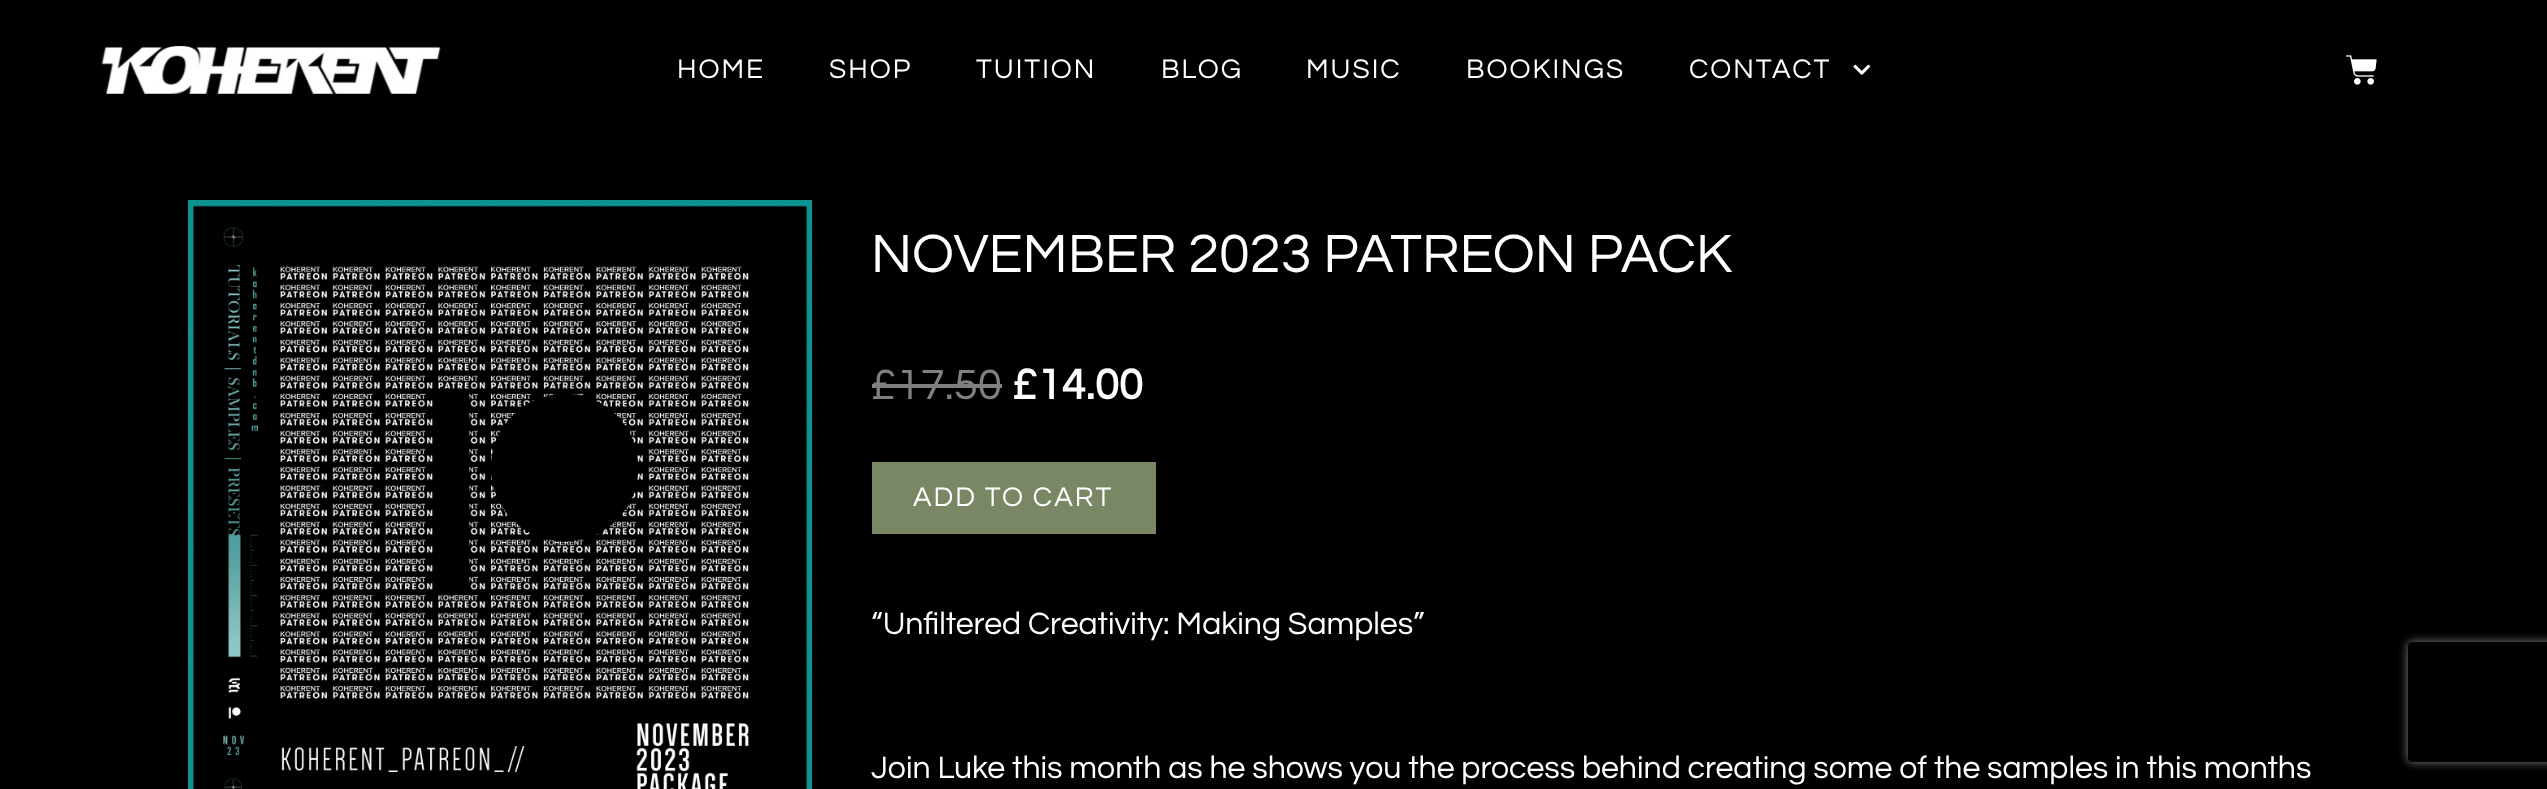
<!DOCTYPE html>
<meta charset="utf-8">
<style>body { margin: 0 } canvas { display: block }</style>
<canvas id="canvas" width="2547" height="789"></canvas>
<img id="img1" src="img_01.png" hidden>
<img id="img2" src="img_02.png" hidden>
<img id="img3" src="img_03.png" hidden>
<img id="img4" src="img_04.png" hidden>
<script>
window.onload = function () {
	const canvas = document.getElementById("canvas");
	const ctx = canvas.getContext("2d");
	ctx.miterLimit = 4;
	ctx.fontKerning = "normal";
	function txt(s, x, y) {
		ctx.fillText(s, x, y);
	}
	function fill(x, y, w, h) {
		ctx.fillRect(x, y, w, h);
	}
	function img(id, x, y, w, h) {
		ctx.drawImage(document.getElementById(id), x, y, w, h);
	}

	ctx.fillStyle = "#000000";
	fill(0, 0, 2547, 789);
	img("img1", 101, 46, 340, 48);
	img("img2", 1853, 64, 18, 11);
	img("img3", 2346, 55, 31, 30);
	img("img4", 188, 200, 624, 589);
	ctx.fillStyle = "#808080";
	fill(872, 384, 130, 4);
	ctx.fillStyle = "#798765";
	fill(872, 462, 284, 72);
	ctx.save();
	ctx.beginPath();
	ctx.moveTo(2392, 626);
	ctx.lineTo(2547, 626);
	ctx.lineTo(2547, 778);
	ctx.lineTo(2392, 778);
	ctx.closePath();
	ctx.moveTo(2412, 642);
	ctx.lineTo(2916, 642);
	ctx.bezierCurveTo(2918, 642, 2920, 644, 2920, 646);
	ctx.lineTo(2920, 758);
	ctx.bezierCurveTo(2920, 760, 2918, 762, 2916, 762);
	ctx.lineTo(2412, 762);
	ctx.bezierCurveTo(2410, 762, 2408, 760, 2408, 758);
	ctx.lineTo(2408, 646);
	ctx.bezierCurveTo(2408, 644, 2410, 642, 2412, 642);
	ctx.closePath();
	ctx.clip("evenodd");
	ctx.fillStyle = "#808080";
	ctx.filter = "blur(5px)";
	ctx.beginPath();
	ctx.roundRect(2408, 642, 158, 120, 4);
	ctx.fill();
	ctx.filter = "none";
	ctx.restore();
	ctx.letterSpacing = "2px";
	ctx.font = "28px Questrial";
	ctx.fillStyle = "#FFFFFF";
	txt("HOME", 677, 78);
	txt("SHOP", 829, 78);
	txt("TUITION", 976, 78);
	txt("BLOG", 1161, 78);
	txt("MUSIC", 1306, 78);
	txt("BOOKINGS", 1466, 78);
	txt("CONTACT", 1689, 78);
	ctx.letterSpacing = "0px";
	ctx.font = "56px Questrial";
	txt("NOVEMBER 2023 PATREON PACK", 871, 272);
	ctx.font = "44px Questrial";
	ctx.fillStyle = "#808080";
	txt("£17.50", 871, 399);
	ctx.font = "bold 44px Questrial";
	ctx.fillStyle = "#FFFFFF";
	txt("£14.00", 1012, 399);
	ctx.letterSpacing = "2px";
	ctx.font = "28px Questrial";
	txt("ADD TO CART", 913, 506);
	ctx.letterSpacing = "0px";
	ctx.font = "32px Questrial";
	txt("“Unfiltered Creativity: Making Samples”", 871, 634);
	txt("Join Luke this month as he shows you the process behind creating some of the samples in this months", 871, 778);
};
</script>
